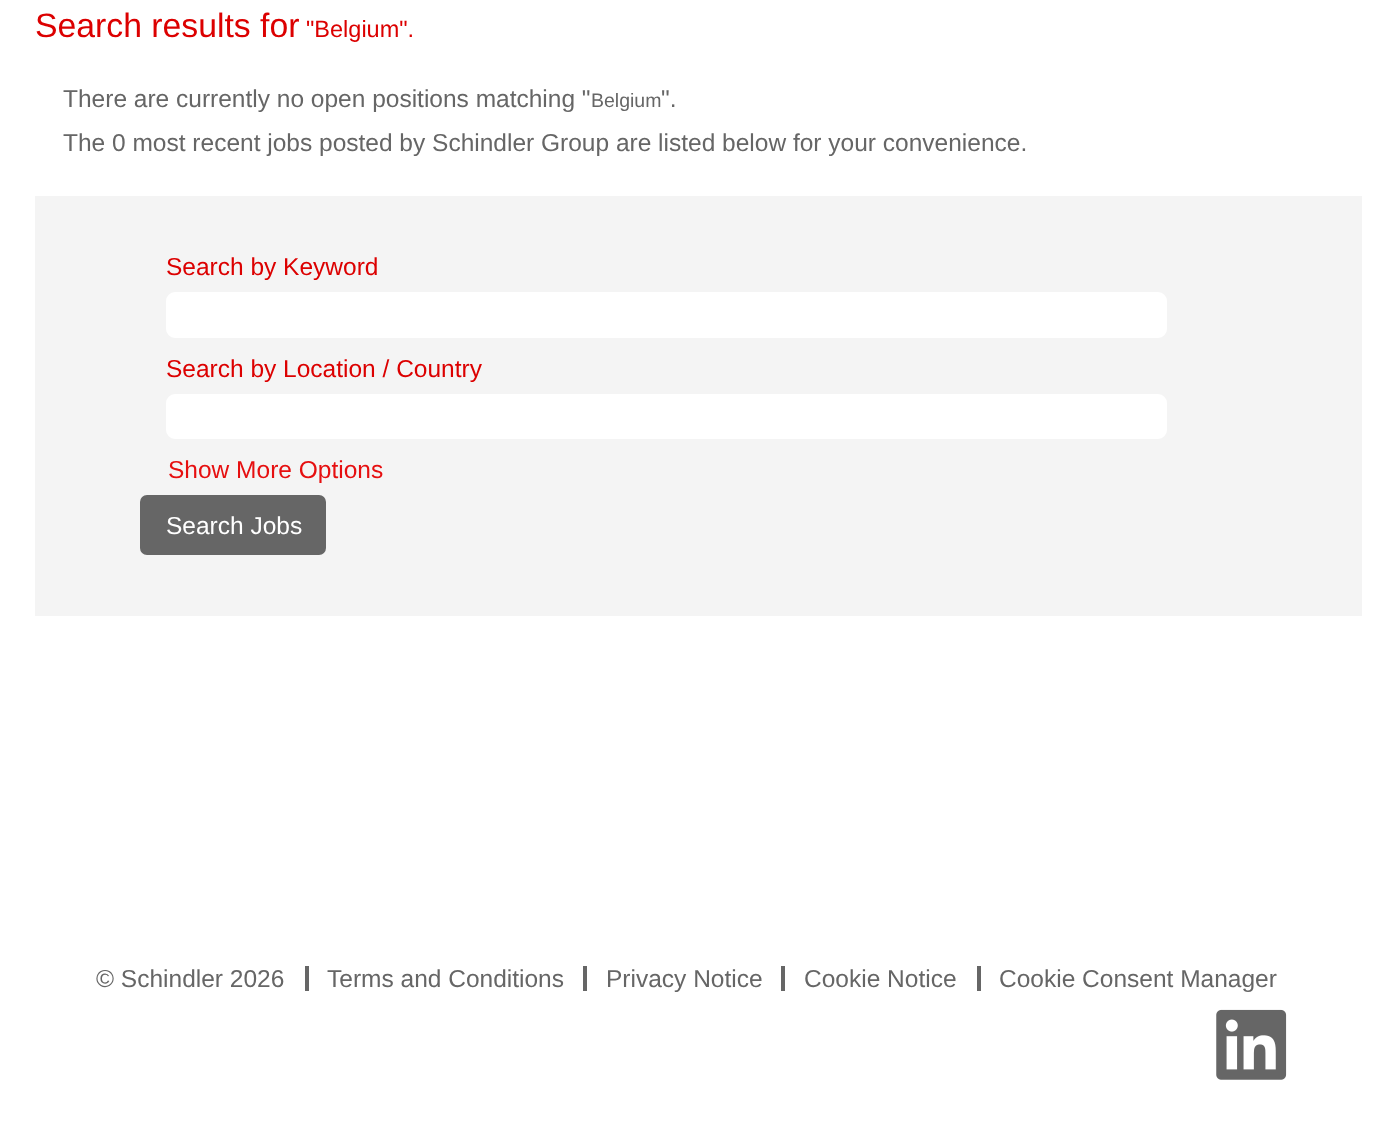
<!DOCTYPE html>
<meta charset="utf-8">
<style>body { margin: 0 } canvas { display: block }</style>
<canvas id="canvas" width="1396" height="1137"></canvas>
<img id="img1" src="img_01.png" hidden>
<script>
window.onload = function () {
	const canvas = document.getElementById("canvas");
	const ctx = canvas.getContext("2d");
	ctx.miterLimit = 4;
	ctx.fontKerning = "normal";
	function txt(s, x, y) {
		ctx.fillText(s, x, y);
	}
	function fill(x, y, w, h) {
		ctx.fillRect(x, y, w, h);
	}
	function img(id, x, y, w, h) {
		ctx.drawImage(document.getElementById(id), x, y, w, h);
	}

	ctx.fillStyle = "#FFFFFF";
	fill(0, 0, 1396, 1137);
	ctx.fillStyle = "#F4F4F4";
	fill(35, 196, 1327, 420);
	ctx.fillStyle = "#FFFFFF";
	ctx.beginPath();
	ctx.roundRect(168, 294, 997, 42, 7);
	ctx.fill();
	ctx.strokeStyle = "#FFFFFF";
	ctx.lineWidth = 4;
	ctx.stroke();
	ctx.beginPath();
	ctx.roundRect(168, 396, 997, 41, 7);
	ctx.fill();
	ctx.stroke();
	ctx.fillStyle = "#666666";
	ctx.beginPath();
	ctx.roundRect(141, 496, 184, 58, 6);
	ctx.fill();
	ctx.strokeStyle = "#666666";
	ctx.lineWidth = 2;
	ctx.stroke();
	fill(305, 966, 4, 25);
	fill(583, 966, 4, 25);
	fill(781, 966, 4, 25);
	fill(977, 966, 4, 25);
	img("img1", 1216, 1009, 71, 71);
	ctx.font = "33.75px Liberation Sans";
	ctx.fillStyle = "#DC0000";
	txt("Search results for", 35, 37);
	ctx.font = "23.5px Liberation Sans";
	txt("\"Belgium\".", 306, 37);
	ctx.font = "24.5px Liberation Sans";
	ctx.fillStyle = "#666666";
	txt("There are currently no open positions matching \"", 63, 107);
	ctx.font = "19.5px Liberation Sans";
	txt("Belgium", 591, 107);
	ctx.font = "24.5px Liberation Sans";
	txt("\".", 661, 107);
	txt("The 0 most recent jobs posted by Schindler Group are listed below for your convenience.", 63, 151);
	ctx.fillStyle = "#DC0000";
	txt("Search by Keyword", 166, 275);
	txt("Search by Location / Country", 166, 377);
	ctx.fillStyle = "#E60F10";
	txt("Show More Options", 168, 478);
	ctx.fillStyle = "#FFFFFF";
	txt("Search Jobs", 166, 534);
	ctx.fillStyle = "#666666";
	txt("© Schindler 2026", 96, 987);
	txt("Terms and Conditions", 327, 987);
	txt("Privacy Notice", 606, 987);
	txt("Cookie Notice", 804, 987);
	txt("Cookie Consent Manager", 999, 987);
};
</script>
